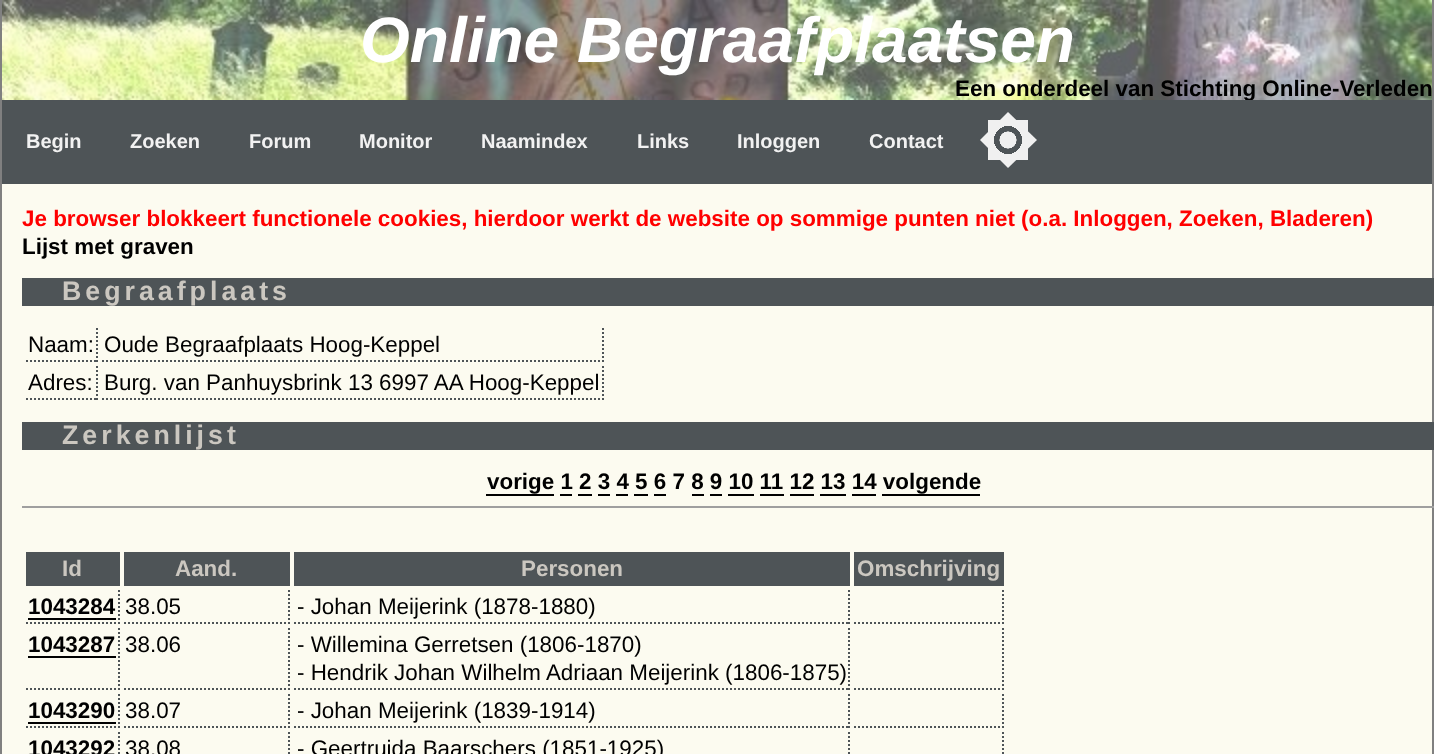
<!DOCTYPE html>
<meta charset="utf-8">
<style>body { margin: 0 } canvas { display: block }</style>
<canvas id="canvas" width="1434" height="754"></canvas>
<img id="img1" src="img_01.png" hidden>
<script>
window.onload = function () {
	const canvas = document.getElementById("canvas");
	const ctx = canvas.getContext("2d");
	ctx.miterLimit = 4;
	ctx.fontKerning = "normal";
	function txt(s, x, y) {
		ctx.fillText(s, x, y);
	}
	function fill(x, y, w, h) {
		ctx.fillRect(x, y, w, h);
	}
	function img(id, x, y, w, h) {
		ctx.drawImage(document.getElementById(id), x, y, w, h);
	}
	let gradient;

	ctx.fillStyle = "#FCFBF0";
	fill(0, 0, 1434, 754);
	ctx.fillStyle = "#808080";
	fill(1432, 0, 2, 754);
	fill(0, 0, 2, 754);
	img("img1", 2, 0, 1430, 100);
	ctx.fillStyle = "#4E5457";
	fill(22, 278, 1412, 28);
	ctx.beginPath();
	ctx.moveTo(97, 328);
	ctx.lineTo(97, 362);
	ctx.strokeStyle = "#4E5457";
	ctx.lineWidth = 2;
	ctx.setLineDash([2, 2]);
	ctx.stroke();
	ctx.beginPath();
	ctx.moveTo(26, 361);
	ctx.lineTo(98, 361);
	ctx.stroke();
	ctx.beginPath();
	ctx.moveTo(603, 328);
	ctx.lineTo(603, 362);
	ctx.stroke();
	ctx.beginPath();
	ctx.moveTo(102, 361);
	ctx.lineTo(604, 361);
	ctx.stroke();
	ctx.beginPath();
	ctx.moveTo(97, 366);
	ctx.lineTo(97, 400);
	ctx.stroke();
	ctx.beginPath();
	ctx.moveTo(26, 399);
	ctx.lineTo(98, 399);
	ctx.stroke();
	ctx.beginPath();
	ctx.moveTo(603, 366);
	ctx.lineTo(603, 400);
	ctx.stroke();
	ctx.beginPath();
	ctx.moveTo(102, 399);
	ctx.lineTo(604, 399);
	ctx.stroke();
	fill(22, 422, 1412, 28);
	ctx.fillStyle = "#000000";
	fill(486, 494, 68, 2);
	fill(560, 494, 12, 2);
	fill(578, 494, 14, 2);
	fill(598, 494, 12, 2);
	fill(616, 494, 12, 2);
	fill(634, 494, 14, 2);
	fill(654, 494, 12, 2);
	fill(692, 494, 12, 2);
	fill(710, 494, 12, 2);
	fill(728, 494, 26, 2);
	fill(760, 494, 24, 2);
	fill(790, 494, 24, 2);
	fill(820, 494, 26, 2);
	fill(852, 494, 24, 2);
	fill(882, 494, 98, 2);
	ctx.fillStyle = "#9F9F9F";
	fill(22, 506, 1412, 2);
	ctx.fillStyle = "#4E5457";
	fill(26, 552, 94, 34);
	fill(124, 552, 166, 34);
	fill(294, 552, 556, 34);
	fill(854, 552, 150, 34);
	ctx.beginPath();
	ctx.moveTo(119, 590);
	ctx.lineTo(119, 624);
	ctx.stroke();
	ctx.beginPath();
	ctx.moveTo(26, 623);
	ctx.lineTo(120, 623);
	ctx.stroke();
	ctx.fillStyle = "#000000";
	fill(28, 618, 88, 2);
	ctx.beginPath();
	ctx.moveTo(289, 590);
	ctx.lineTo(289, 624);
	ctx.stroke();
	ctx.beginPath();
	ctx.moveTo(124, 623);
	ctx.lineTo(290, 623);
	ctx.stroke();
	ctx.beginPath();
	ctx.moveTo(849, 590);
	ctx.lineTo(849, 624);
	ctx.stroke();
	ctx.beginPath();
	ctx.moveTo(294, 623);
	ctx.lineTo(850, 623);
	ctx.stroke();
	ctx.beginPath();
	ctx.moveTo(1003, 590);
	ctx.lineTo(1003, 624);
	ctx.stroke();
	ctx.beginPath();
	ctx.moveTo(854, 623);
	ctx.lineTo(1004, 623);
	ctx.stroke();
	ctx.beginPath();
	ctx.moveTo(119, 628);
	ctx.lineTo(119, 690);
	ctx.stroke();
	ctx.beginPath();
	ctx.moveTo(26, 689);
	ctx.lineTo(120, 689);
	ctx.stroke();
	fill(28, 656, 88, 2);
	ctx.beginPath();
	ctx.moveTo(289, 628);
	ctx.lineTo(289, 690);
	ctx.stroke();
	ctx.beginPath();
	ctx.moveTo(124, 689);
	ctx.lineTo(290, 689);
	ctx.stroke();
	ctx.beginPath();
	ctx.moveTo(849, 628);
	ctx.lineTo(849, 690);
	ctx.stroke();
	ctx.beginPath();
	ctx.moveTo(294, 689);
	ctx.lineTo(850, 689);
	ctx.stroke();
	ctx.beginPath();
	ctx.moveTo(1003, 628);
	ctx.lineTo(1003, 690);
	ctx.stroke();
	ctx.beginPath();
	ctx.moveTo(854, 689);
	ctx.lineTo(1004, 689);
	ctx.stroke();
	ctx.beginPath();
	ctx.moveTo(119, 694);
	ctx.lineTo(119, 728);
	ctx.stroke();
	ctx.beginPath();
	ctx.moveTo(26, 727);
	ctx.lineTo(120, 727);
	ctx.stroke();
	fill(28, 722, 88, 2);
	ctx.beginPath();
	ctx.moveTo(289, 694);
	ctx.lineTo(289, 728);
	ctx.stroke();
	ctx.beginPath();
	ctx.moveTo(124, 727);
	ctx.lineTo(290, 727);
	ctx.stroke();
	ctx.beginPath();
	ctx.moveTo(849, 694);
	ctx.lineTo(849, 728);
	ctx.stroke();
	ctx.beginPath();
	ctx.moveTo(294, 727);
	ctx.lineTo(850, 727);
	ctx.stroke();
	ctx.beginPath();
	ctx.moveTo(1003, 694);
	ctx.lineTo(1003, 728);
	ctx.stroke();
	ctx.beginPath();
	ctx.moveTo(854, 727);
	ctx.lineTo(1004, 727);
	ctx.stroke();
	ctx.beginPath();
	ctx.moveTo(119, 732);
	ctx.lineTo(119, 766);
	ctx.stroke();
	ctx.beginPath();
	ctx.moveTo(289, 732);
	ctx.lineTo(289, 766);
	ctx.stroke();
	ctx.beginPath();
	ctx.moveTo(849, 732);
	ctx.lineTo(849, 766);
	ctx.stroke();
	ctx.beginPath();
	ctx.moveTo(1003, 732);
	ctx.lineTo(1003, 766);
	ctx.stroke();
	ctx.font = "italic bold 64px Liberation Sans";
	ctx.fillStyle = "#FFFFFF";
	txt("Online Begraafplaatsen", 360, 62);
	ctx.font = "bold 22.4px Liberation Sans";
	ctx.fillStyle = "#000000";
	txt("Een onderdeel van Stichting Online-Verleden", 955, 96);
	ctx.fillStyle = "#4E5457";
	fill(2, 100, 1430, 84);
	ctx.font = "bold 20px Liberation Sans";
	ctx.fillStyle = "#F2F2F2";
	txt("Begin", 26, 148);
	txt("Zoeken", 130, 148);
	txt("Forum", 249, 148);
	txt("Monitor", 359, 148);
	txt("Naamindex", 481, 148);
	txt("Links", 637, 148);
	txt("Inloggen", 737, 148);
	txt("Contact", 869, 148);
	gradient = ctx.createRadialGradient(1008, 140, 0, 1008, 140, 28);
	gradient.addColorStop(0, "#4E5457");
	gradient.addColorStop(0.5, "#4E5457");
	gradient.addColorStop(0.5, "#F0F0F0");
	ctx.fillStyle = gradient;
	fill(988, 120, 40, 40);
	gradient = ctx.createRadialGradient(1008, 140, 0, 1008, 140, 28);
	gradient.addColorStop(0.3, "#F0F0F0");
	gradient.addColorStop(0.31, "rgba(240, 240, 240, 0)");
	gradient.addColorStop(0.5, "rgba(240, 240, 240, 0)");
	gradient.addColorStop(0.5, "#F0F0F0");
	ctx.fillStyle = gradient;
	ctx.beginPath();
	ctx.moveTo(1008, 168);
	ctx.lineTo(980, 140);
	ctx.lineTo(1008, 112);
	ctx.lineTo(1037, 140);
	ctx.closePath();
	ctx.fill();
	ctx.fillStyle = "#4E5457";
	ctx.beginPath();
	ctx.moveTo(999.5, 139.5);
	ctx.lineTo(996.5, 138);
	ctx.lineTo(998.5, 137.5);
	ctx.closePath();
	ctx.fill();
	ctx.font = "bold 22.4px Liberation Sans";
	ctx.fillStyle = "#FF0000";
	txt("Je browser blokkeert functionele cookies, hierdoor werkt de website op sommige punten niet (o.a. Inloggen, Zoeken, Bladeren)", 22, 226);
	ctx.fillStyle = "#000000";
	txt("Lijst met graven", 22, 254);
	ctx.letterSpacing = "4px";
	ctx.font = "bold 26.75px Liberation Sans";
	ctx.fillStyle = "#CBC7C0";
	txt("Begraafplaats", 62, 300);
	ctx.letterSpacing = "0px";
	ctx.font = "22.4px Liberation Sans";
	ctx.fillStyle = "#000000";
	txt("Naam:", 28, 352);
	txt("Oude Begraafplaats Hoog-Keppel", 104, 352);
	txt("Adres:", 28, 390);
	txt("Burg. van Panhuysbrink 13 6997 AA Hoog-Keppel", 104, 390);
	ctx.letterSpacing = "4px";
	ctx.font = "bold 26.75px Liberation Sans";
	ctx.fillStyle = "#CBC7C0";
	txt("Zerkenlijst", 62, 444);
	ctx.letterSpacing = "0px";
	ctx.font = "bold 22.4px Liberation Sans";
	ctx.fillStyle = "#000000";
	txt("vorige 1 2 3 4 5 6 7 8 9 10 11 12 13 14 volgende", 487, 489);
	ctx.fillStyle = "#CBC7C0";
	txt("Id", 62, 576);
	txt("Aand.", 175, 576);
	txt("Personen", 521, 576);
	txt("Omschrijving", 857, 576);
	ctx.fillStyle = "#000000";
	txt("1043284", 28, 614);
	ctx.font = "22.4px Liberation Sans";
	txt("38.05", 125, 614);
	txt("- Johan Meijerink (1878-1880)", 297, 614);
	ctx.font = "bold 22.4px Liberation Sans";
	txt("1043287", 28, 652);
	ctx.font = "22.4px Liberation Sans";
	txt("38.06", 125, 652);
	txt("- Willemina Gerretsen (1806-1870)", 297, 652);
	txt("- Hendrik Johan Wilhelm Adriaan Meijerink (1806-1875)", 297, 680);
	ctx.font = "bold 22.4px Liberation Sans";
	txt("1043290", 28, 718);
	ctx.font = "22.4px Liberation Sans";
	txt("38.07", 125, 718);
	txt("- Johan Meijerink (1839-1914)", 297, 718);
	ctx.font = "bold 22.4px Liberation Sans";
	txt("1043292", 28, 756);
	ctx.font = "22.4px Liberation Sans";
	txt("38.08", 125, 756);
	txt("- Geertruida Baarschers (1851-1925)", 297, 756);
};
</script>
